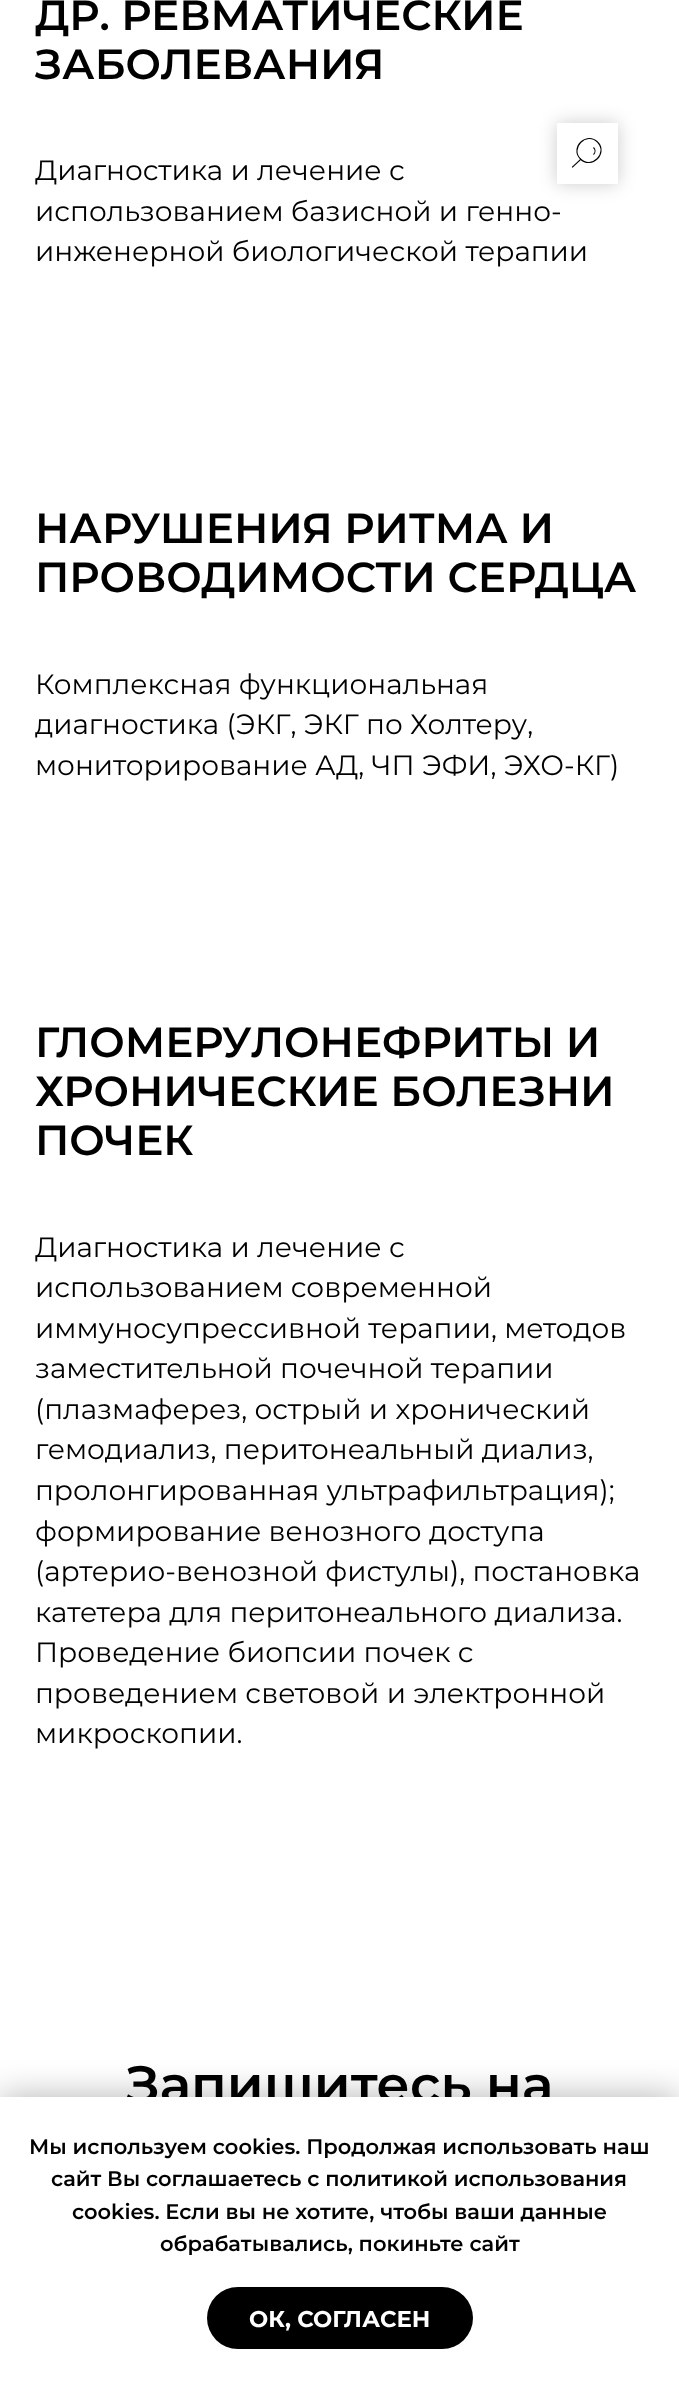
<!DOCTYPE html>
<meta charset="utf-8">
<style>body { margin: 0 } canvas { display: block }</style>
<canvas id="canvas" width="679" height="2383"></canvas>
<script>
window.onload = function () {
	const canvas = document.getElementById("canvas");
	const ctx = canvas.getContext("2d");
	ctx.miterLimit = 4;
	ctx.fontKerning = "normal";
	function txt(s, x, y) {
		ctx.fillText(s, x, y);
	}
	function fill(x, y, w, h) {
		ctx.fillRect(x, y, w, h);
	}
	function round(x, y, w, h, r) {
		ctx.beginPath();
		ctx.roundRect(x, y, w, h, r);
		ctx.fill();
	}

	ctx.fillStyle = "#FFFFFF";
	fill(0, 0, 679, 2383);
	ctx.save();
	ctx.beginPath();
	ctx.moveTo(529, 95);
	ctx.lineTo(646, 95);
	ctx.lineTo(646, 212);
	ctx.lineTo(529, 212);
	ctx.closePath();
	ctx.moveTo(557, 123);
	ctx.lineTo(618, 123);
	ctx.lineTo(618, 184);
	ctx.lineTo(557, 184);
	ctx.closePath();
	ctx.clip("evenodd");
	ctx.fillStyle = "rgba(0, 0, 0, 0.2)";
	ctx.filter = "blur(9px)";
	ctx.beginPath();
	ctx.rect(557, 123, 61, 61);
	ctx.fill();
	ctx.filter = "none";
	ctx.restore();
	ctx.fillStyle = "rgba(255, 255, 255, 0.8)";
	fill(557, 123, 61, 61);
	ctx.beginPath();
	ctx.moveTo(580.5, 159.5);
	ctx.lineTo(572.5, 167);
	ctx.strokeStyle = "#000000";
	ctx.lineWidth = 1.1;
	ctx.lineCap = "square";
	ctx.stroke();
	ctx.beginPath();
	ctx.moveTo(597.5, 142);
	ctx.bezierCurveTo(608.5, 153, 591.5, 170, 580.5, 159);
	ctx.bezierCurveTo(569.5, 148, 586.5, 131, 597.5, 142);
	ctx.closePath();
	ctx.moveTo(593.5, 147.5);
	ctx.bezierCurveTo(595.5, 149.5, 595.5, 152.5, 593.5, 154.5);
	ctx.lineCap = "butt";
	ctx.stroke();
	ctx.fillStyle = "rgba(0, 0, 0, 0.3)";
	ctx.filter = "blur(17.5px)";
	ctx.beginPath();
	ctx.rect(0, 2097, 679, 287);
	ctx.fill();
	ctx.filter = "none";
	ctx.font = "600 42px Montserrat";
	ctx.fillStyle = "#000000";
	txt("ДР. РЕВМАТИЧЕСКИЕ", 35, 30);
	txt("ЗАБОЛЕВАНИЯ", 35, 79);
	ctx.font = "28px Montserrat";
	txt("Диагностика и лечение с", 35, 180);
	txt("использованием базисной и генно-", 35, 221);
	txt("инженерной биологической терапии", 35, 261);
	ctx.font = "600 42px Montserrat";
	txt("НАРУШЕНИЯ РИТМА И", 35, 543);
	txt("ПРОВОДИМОСТИ СЕРДЦА", 35, 592);
	ctx.font = "28px Montserrat";
	txt("Комплексная функциональная", 35, 694);
	txt("диагностика (ЭКГ, ЭКГ по Холтеру,", 35, 734);
	txt("мониторирование АД, ЧП ЭФИ, ЭХО-КГ)", 35, 775);
	ctx.font = "600 42px Montserrat";
	txt("ГЛОМЕРУЛОНЕФРИТЫ И", 35, 1057);
	txt("ХРОНИЧЕСКИЕ БОЛЕЗНИ", 35, 1106);
	txt("ПОЧЕК", 35, 1155);
	ctx.font = "28px Montserrat";
	txt("Диагностика и лечение с", 35, 1257);
	txt("использованием современной", 35, 1297);
	txt("иммуносупрессивной терапии, методов", 35, 1338);
	txt("заместительной почечной терапии", 35, 1378);
	txt("(плазмаферез, острый и хронический", 35, 1419);
	txt("гемодиализ, перитонеальный диализ,", 35, 1459);
	txt("пролонгированная ультрафильтрация);", 35, 1500);
	txt("формирование венозного доступа", 35, 1541);
	txt("(артерио-венозной фистулы), постановка", 35, 1581);
	txt("катетера для перитонеального диализа.", 35, 1622);
	txt("Проведение биопсии почек с", 35, 1662);
	txt("проведением световой и электронной", 35, 1703);
	txt("микроскопии.", 35, 1743);
	ctx.font = "600 52.5px Montserrat";
	txt("Запишитесь на", 126, 2103);
	ctx.fillStyle = "#FFFFFF";
	fill(0, 2097, 679, 286);
	ctx.font = "600 21px Montserrat";
	ctx.fillStyle = "#000000";
	txt("Мы используем cookies. Продолжая использовать наш", 29, 2154);
	txt("сайт Вы соглашаетесь с политикой использования", 51, 2186);
	txt("cookies. Если вы не хотите, чтобы ваши данные", 72, 2219);
	txt("обрабатывались, покиньте сайт", 160, 2251);
	round(207, 2287, 266, 62, 31);
	ctx.font = "bold 22.75px Montserrat";
	ctx.fillStyle = "#FFFFFF";
	txt("ОК, СОГЛАСЕН", 249, 2327);
};
</script>
